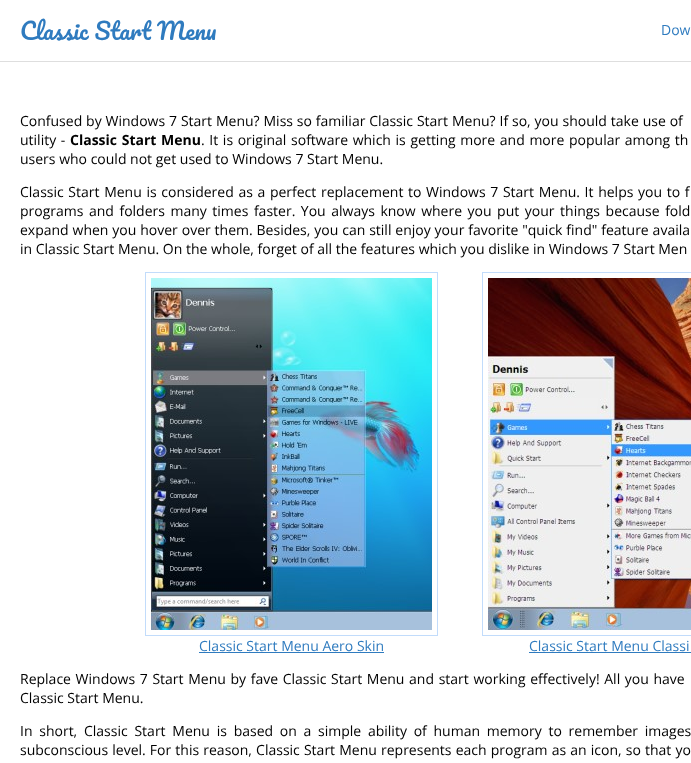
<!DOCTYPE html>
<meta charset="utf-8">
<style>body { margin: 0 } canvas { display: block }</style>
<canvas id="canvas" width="691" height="763"></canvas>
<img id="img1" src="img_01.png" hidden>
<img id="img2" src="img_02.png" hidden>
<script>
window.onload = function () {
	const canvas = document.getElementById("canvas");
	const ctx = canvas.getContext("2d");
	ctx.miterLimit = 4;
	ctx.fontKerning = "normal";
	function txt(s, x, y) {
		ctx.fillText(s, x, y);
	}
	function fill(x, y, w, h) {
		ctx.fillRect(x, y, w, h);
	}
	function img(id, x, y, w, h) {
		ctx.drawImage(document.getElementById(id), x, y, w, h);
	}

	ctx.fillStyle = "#FFFFFF";
	fill(0, 0, 691, 763);
	ctx.fillStyle = "#DEDEDE";
	fill(0, 61, 691, 1);
	ctx.strokeStyle = "#C2DCFB";
	ctx.strokeRect(145.5, 272.5, 292, 363);
	img("img1", 151, 278, 281, 352);
	ctx.fillStyle = "#2F7BBF";
	fill(199, 652, 185, 1);
	ctx.strokeRect(482.5, 272.5, 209, 363);
	img("img2", 488, 278, 203, 352);
	fill(529, 652, 162, 1);
	ctx.font = "23px Pacifico";
	txt("Classic Start Menu", 20, 40);
	ctx.font = "14px Open Sans";
	txt("Dow", 661, 35);
	ctx.wordSpacing = "0.25px";
	ctx.fillStyle = "#000000";
	txt("Confused by Windows 7 Start Menu? Miss so familiar Classic Start Menu? If so, you should take use of", 20, 126);
	ctx.wordSpacing = "1px";
	txt("utility -", 20, 145);
	ctx.font = "bold 14px Open Sans";
	txt("Classic Start Menu", 70, 145);
	ctx.font = "14px Open Sans";
	txt(". It is original software which is getting more and more popular among th", 201, 145);
	ctx.wordSpacing = "0px";
	txt("users who could not get used to Windows 7 Start Menu.", 20, 164);
	ctx.wordSpacing = "1px";
	txt("Classic Start Menu is considered as a perfect replacement to Windows 7 Start Menu. It helps you to f", 20, 197);
	ctx.wordSpacing = "1.9px";
	txt("programs and folders many times faster. You always know where you put your things because fold", 20, 216);
	ctx.wordSpacing = "0.25px";
	txt("expand when you hover over them. Besides, you can still enjoy your favorite \"quick find\" feature availa", 20, 235);
	ctx.wordSpacing = "0px";
	txt("in Classic Start Menu. On the whole, forget of all the features which you dislike in Windows 7 Start Men", 20, 254);
	ctx.fillStyle = "#2F7BBF";
	txt("Classic Start Menu Aero Skin", 199, 651);
	txt("Classic Start Menu Classi", 529, 651);
	ctx.wordSpacing = "1px";
	ctx.fillStyle = "#000000";
	txt("Replace Windows 7 Start Menu by fave Classic Start Menu and start working effectively! All you have", 20, 684);
	ctx.wordSpacing = "0px";
	txt("Classic Start Menu.", 20, 703);
	ctx.wordSpacing = "3.1px";
	txt("In short, Classic Start Menu is based on a simple ability of human memory to remember images", 20, 736);
	ctx.wordSpacing = "0.5px";
	txt("subconscious level. For this reason, Classic Start Menu represents each program as an icon, so that yo", 20, 755);
};
</script>
